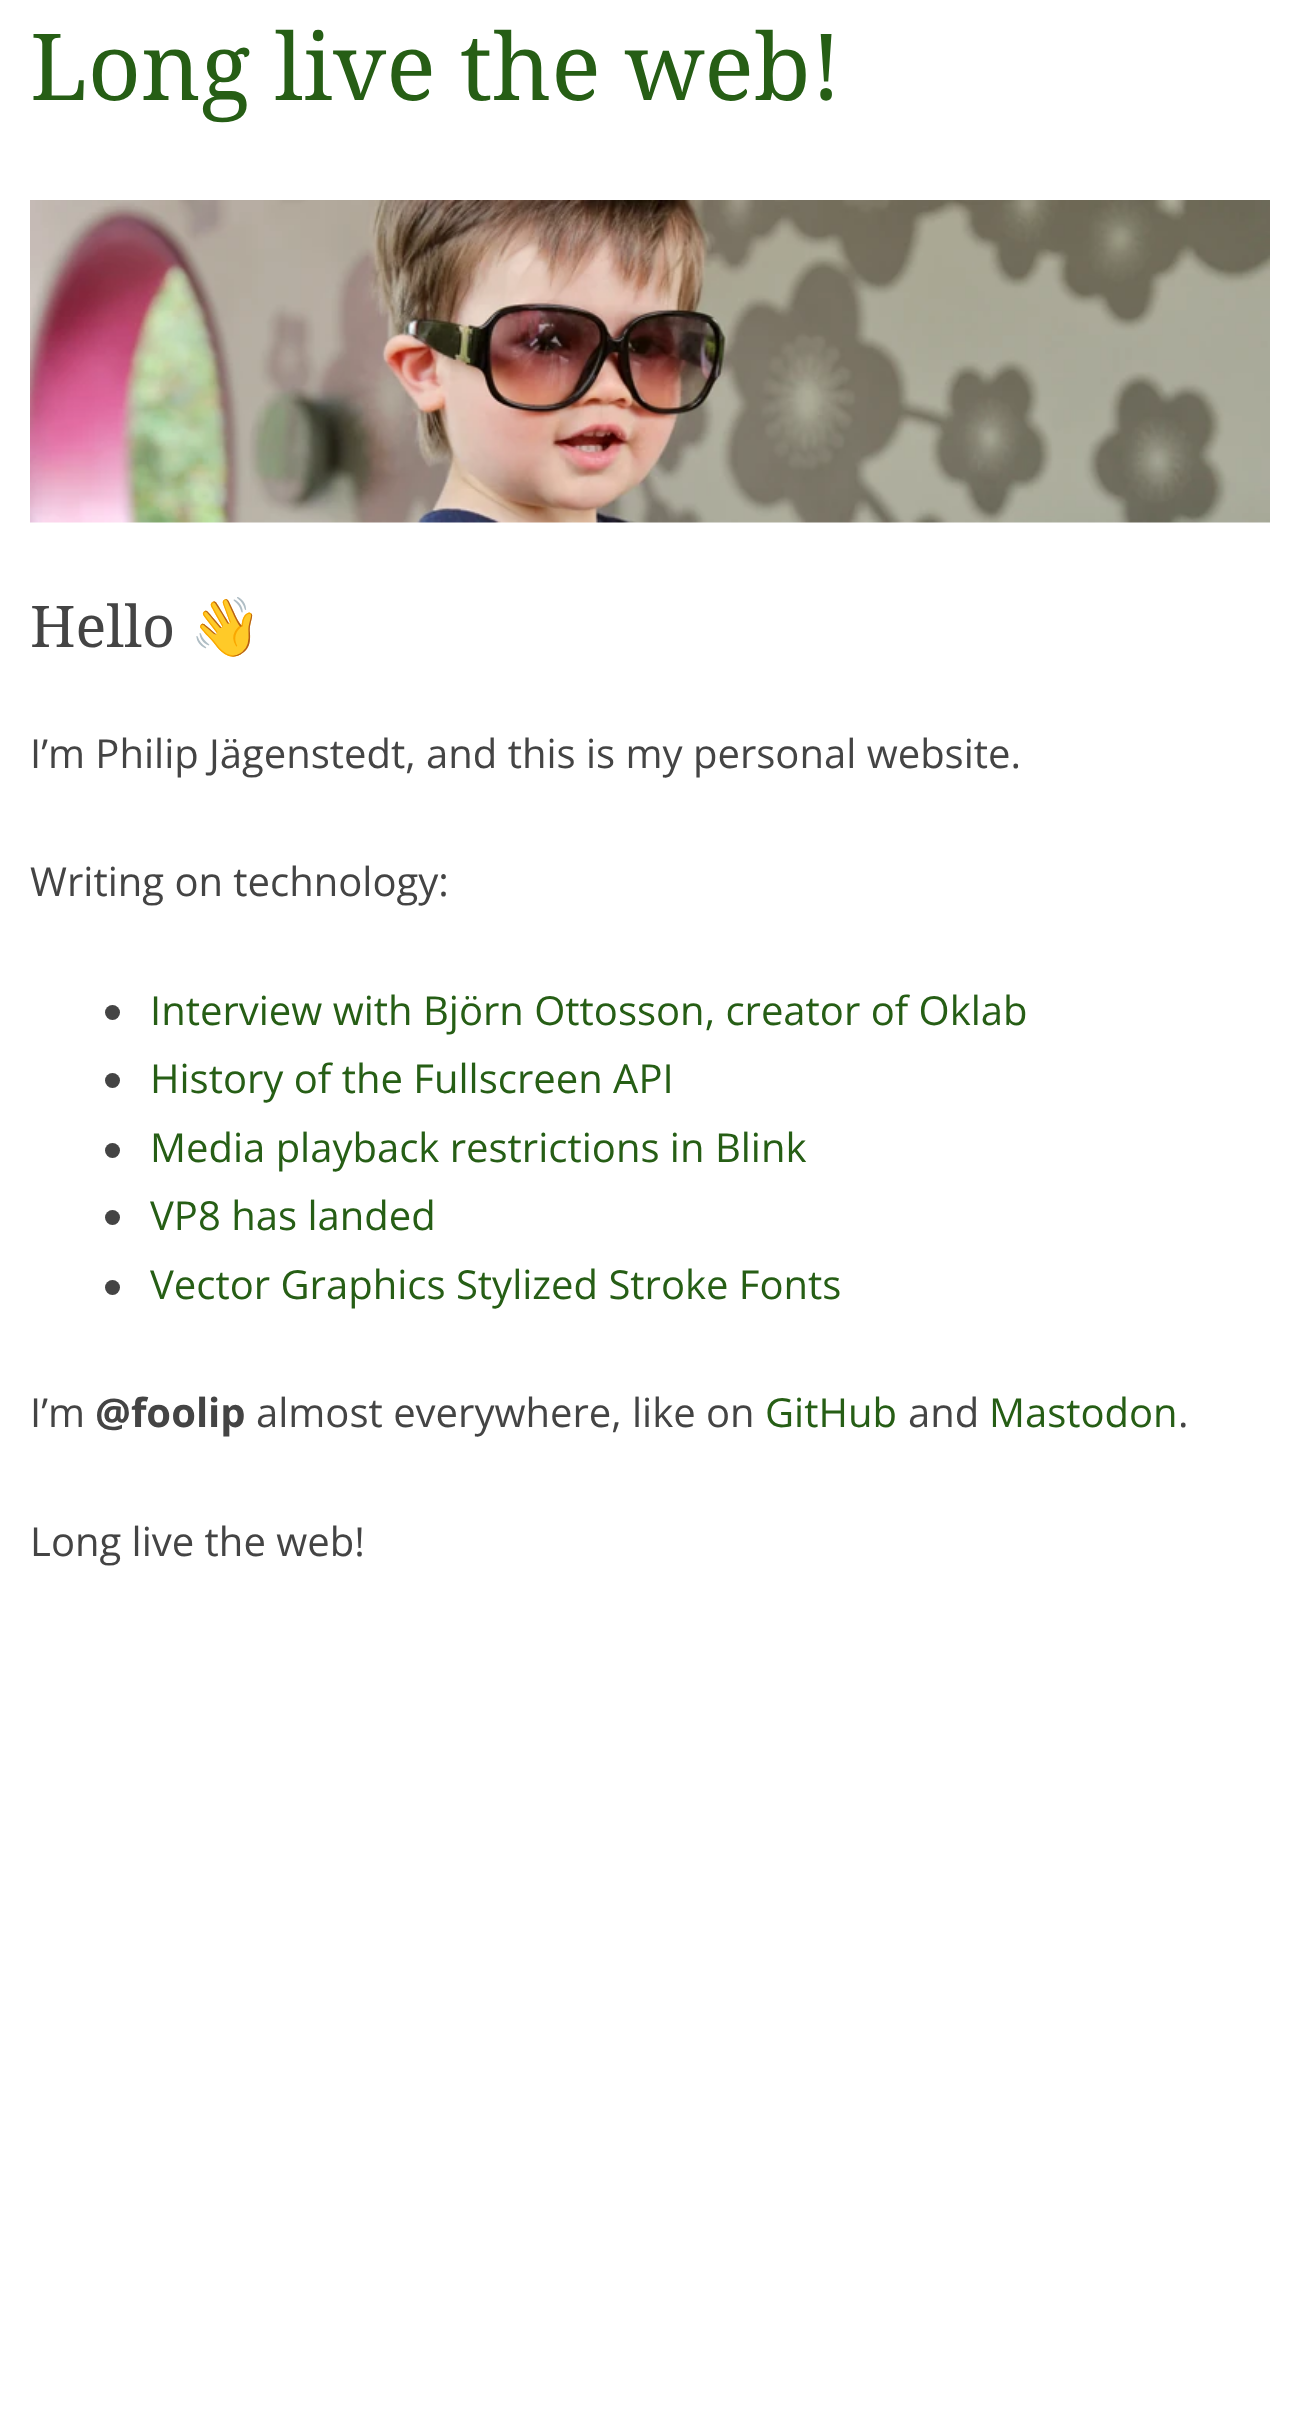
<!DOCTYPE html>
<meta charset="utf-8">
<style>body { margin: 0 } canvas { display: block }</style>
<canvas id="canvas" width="1299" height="2420"></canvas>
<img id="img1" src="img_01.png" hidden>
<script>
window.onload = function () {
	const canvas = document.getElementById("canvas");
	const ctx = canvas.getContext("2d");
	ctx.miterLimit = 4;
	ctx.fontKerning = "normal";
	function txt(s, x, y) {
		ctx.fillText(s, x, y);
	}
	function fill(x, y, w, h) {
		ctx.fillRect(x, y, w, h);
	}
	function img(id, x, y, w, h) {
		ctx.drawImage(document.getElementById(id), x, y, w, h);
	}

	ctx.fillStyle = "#FFFFFF";
	fill(0, 0, 1299, 2420);
	img("img1", 30, 200, 1240, 323);
	ctx.fillStyle = "#444444";
	ctx.beginPath();
	ctx.arc(112.5, 1012.5, 7.5, 0, Math.PI * 2);
	ctx.fill();
	ctx.beginPath();
	ctx.arc(112.5, 1080.5, 7.5, 0, Math.PI * 2);
	ctx.fill();
	ctx.beginPath();
	ctx.arc(112.5, 1150.5, 7.5, 0, Math.PI * 2);
	ctx.fill();
	ctx.beginPath();
	ctx.arc(112.5, 1217.5, 7.5, 0, Math.PI * 2);
	ctx.fill();
	ctx.beginPath();
	ctx.arc(112.5, 1287.5, 7.5, 0, Math.PI * 2);
	ctx.fill();
	ctx.font = "92.5px Droid Serif";
	ctx.fillStyle = "#265E15";
	txt("Long live the web!", 30, 100);
	ctx.font = "57.5px Droid Serif";
	ctx.fillStyle = "#444444";
	txt("Hello", 30, 647);
	ctx.font = "57.5px Noto Color Emoji";
	txt("👋", 190, 647);
	ctx.font = "40px Open Sans";
	txt("I’m Philip Jägenstedt, and this is my personal website.", 30, 768);
	txt("Writing on technology:", 30, 896);
	ctx.fillStyle = "#265E15";
	txt("Interview with Björn Ottosson, creator of Oklab", 150, 1025);
	txt("History of the Fullscreen API", 150, 1093);
	txt("Media playback restrictions in Blink", 150, 1162);
	txt("VP8 has landed", 150, 1230);
	txt("Vector Graphics Stylized Stroke Fonts", 150, 1299);
	ctx.fillStyle = "#444444";
	txt("I’m", 30, 1427);
	ctx.font = "bold 40px Open Sans";
	txt("@foolip", 95, 1427);
	ctx.font = "40px Open Sans";
	txt("almost everywhere, like on", 256, 1427);
	ctx.fillStyle = "#265E15";
	txt("GitHub", 765, 1427);
	ctx.fillStyle = "#444444";
	txt("and", 908, 1427);
	ctx.fillStyle = "#265E15";
	txt("Mastodon", 989, 1427);
	ctx.fillStyle = "#444444";
	txt(".", 1178, 1427);
	txt("Long live the web!", 30, 1556);
};
</script>
